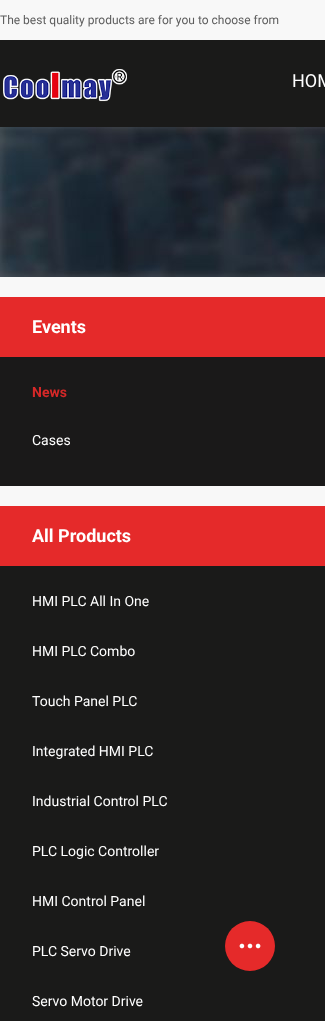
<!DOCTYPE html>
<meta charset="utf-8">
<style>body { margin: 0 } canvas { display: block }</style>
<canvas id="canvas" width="325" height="1021"></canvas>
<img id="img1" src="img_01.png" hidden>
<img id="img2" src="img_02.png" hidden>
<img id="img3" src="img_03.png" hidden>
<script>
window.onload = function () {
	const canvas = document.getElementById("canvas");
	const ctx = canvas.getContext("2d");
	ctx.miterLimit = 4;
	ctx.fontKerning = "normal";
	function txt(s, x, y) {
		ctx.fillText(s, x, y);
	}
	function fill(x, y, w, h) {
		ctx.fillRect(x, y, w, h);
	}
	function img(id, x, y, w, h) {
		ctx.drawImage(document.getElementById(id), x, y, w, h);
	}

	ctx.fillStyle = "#F8F8F8";
	fill(0, 0, 325, 1021);
	ctx.fillStyle = "#1A1A19";
	fill(0, 40, 325, 87);
	img("img1", 3, 69, 124, 33);
	img("img2", 0, 127, 325, 150);
	ctx.fillStyle = "#E52A2A";
	fill(0, 297, 325, 60);
	ctx.fillStyle = "#1A1919";
	fill(0, 357, 325, 129);
	ctx.fillStyle = "#E52A2A";
	fill(0, 506, 325, 60);
	ctx.fillStyle = "#1A1A19";
	fill(0, 566, 325, 455);
	ctx.fillStyle = "#E52A2A";
	ctx.beginPath();
	ctx.arc(250, 946, 25, 0, Math.PI * 2);
	ctx.fill();
	img("img3", 239, 943, 22, 6);
	ctx.font = "12px Roboto";
	ctx.fillStyle = "#5D5D5D";
	txt("The best quality products are for you to choose from", 0, 24);
	ctx.font = "18px Roboto";
	ctx.fillStyle = "#FFFFFF";
	txt("HOM", 292, 87);
	ctx.font = "bold 18px Roboto";
	txt("Events", 32, 333);
	ctx.font = "bold 14px Roboto";
	ctx.fillStyle = "#D52828";
	txt("News", 32, 397);
	ctx.font = "14px Roboto";
	ctx.fillStyle = "#FFFFFF";
	txt("Cases", 32, 445);
	ctx.font = "bold 18px Roboto";
	txt("All Products", 32, 542);
	ctx.font = "14px Roboto";
	txt("HMI PLC All In One", 32, 606);
	txt("HMI PLC Combo", 32, 656);
	txt("Touch Panel PLC", 32, 706);
	txt("Integrated HMI PLC", 32, 756);
	txt("Industrial Control PLC", 32, 806);
	txt("PLC Logic Controller", 32, 856);
	txt("HMI Control Panel", 32, 906);
	txt("PLC Servo Drive", 32, 956);
	txt("Servo Motor Drive", 32, 1006);
};
</script>
